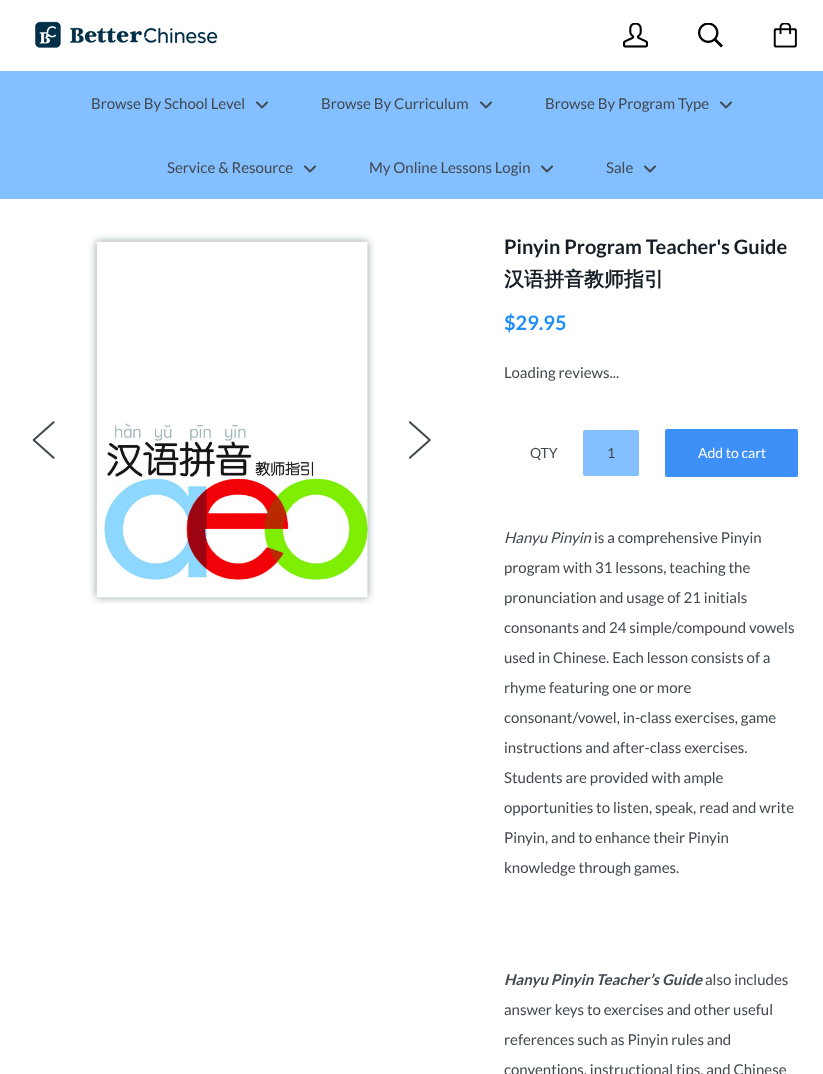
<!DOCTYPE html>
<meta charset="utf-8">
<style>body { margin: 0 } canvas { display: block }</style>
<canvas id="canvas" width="823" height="1074"></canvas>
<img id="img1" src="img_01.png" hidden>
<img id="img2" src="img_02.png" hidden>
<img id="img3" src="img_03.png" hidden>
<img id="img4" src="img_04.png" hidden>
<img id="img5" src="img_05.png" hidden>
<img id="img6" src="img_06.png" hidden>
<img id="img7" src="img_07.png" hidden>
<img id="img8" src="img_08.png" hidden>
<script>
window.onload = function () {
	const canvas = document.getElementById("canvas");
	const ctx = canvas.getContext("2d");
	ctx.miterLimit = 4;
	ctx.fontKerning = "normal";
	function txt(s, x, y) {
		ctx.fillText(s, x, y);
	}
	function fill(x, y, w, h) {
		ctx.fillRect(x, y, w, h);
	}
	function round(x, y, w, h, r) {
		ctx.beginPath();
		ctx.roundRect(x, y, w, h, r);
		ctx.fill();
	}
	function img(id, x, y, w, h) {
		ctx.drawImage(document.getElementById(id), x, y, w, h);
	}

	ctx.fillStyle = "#FFFFFF";
	fill(0, 0, 823, 1074);
	ctx.fillStyle = "#FFFCFC";
	fill(0, 199, 823, 1);
	img("img1", 35, 21, 183, 27);
	img("img2", 623, 23, 25, 25);
	img("img3", 698, 23, 25, 25);
	img("img4", 773, 23, 24, 25);
	ctx.fillStyle = "#84BFFF";
	fill(0, 71, 823, 128);
	ctx.fillStyle = "#FFFCFC";
	fill(0, 70, 823, 1);
	img("img5", 256, 101, 12, 8);
	img("img5", 480, 101, 12, 8);
	img("img5", 720, 101, 12, 8);
	img("img5", 304, 165, 12, 8);
	img("img5", 541, 165, 12, 8);
	img("img5", 644, 165, 12, 8);
	img("img6", 32, 421, 23, 38);
	img("img7", 88, 234, 287, 370);
	img("img8", 408, 421, 23, 38);
	ctx.beginPath();
	ctx.roundRect(504.5, 429.5, 135, 47, 1.5);
	ctx.strokeStyle = "#FFFCFC";
	ctx.stroke();
	fill(582, 430, 1, 46);
	ctx.fillStyle = "#84BFFF";
	round(583, 430, 56, 46, 2);
	ctx.fillStyle = "#3E90F9";
	round(665, 429, 133, 48, 2);
	ctx.font = "15px Lato";
	ctx.fillStyle = "#404850";
	txt("Browse By School Level", 91, 109);
	txt("Browse By Curriculum", 321, 109);
	txt("Browse By Program Type", 545, 109);
	txt("Service & Resource", 167, 173);
	txt("My Online Lessons Login", 369, 173);
	txt("Sale", 606, 173);
	ctx.font = "bold 20px Lato";
	ctx.fillStyle = "#161E26";
	txt("Pinyin Program Teacher's Guide", 504, 254);
	ctx.font = "bold 20px WenQuanYi Zen Hei";
	txt("汉语拼音教师指引", 504, 286);
	ctx.font = "bold 20px Lato";
	ctx.fillStyle = "#1F8EF9";
	txt("$29.95", 504, 330);
	ctx.font = "15px Lato";
	ctx.fillStyle = "#404850";
	txt("Loading reviews...", 504, 378);
	ctx.font = "14px Lato";
	txt("QTY", 530, 458);
	txt("1", 607, 458);
	ctx.fillStyle = "#FFFFFF";
	txt("Add to cart", 698, 458);
	ctx.font = "italic 15px Lato";
	ctx.fillStyle = "#404850";
	txt("Hanyu Pinyin", 504, 543);
	ctx.font = "15px Lato";
	txt("is a comprehensive Pinyin", 594, 543);
	txt("program with 31 lessons, teaching the", 504, 573);
	txt("pronunciation and usage of 21 initials", 504, 603);
	txt("consonants and 24 simple/compound vowels", 504, 633);
	txt("used in Chinese. Each lesson consists of a", 504, 663);
	txt("rhyme featuring one or more", 504, 693);
	txt("consonant/vowel, in-class exercises, game", 504, 723);
	txt("instructions and after-class exercises.", 504, 753);
	txt("Students are provided with ample", 504, 783);
	txt("opportunities to listen, speak, read and write", 504, 813);
	txt("Pinyin, and to enhance their Pinyin", 504, 843);
	txt("knowledge through games.", 504, 873);
	ctx.font = "italic bold 15px Lato";
	txt("Hanyu Pinyin Teacher’s Guide", 504, 985);
	ctx.font = "15px Lato";
	txt("also includes", 705, 985);
	txt("answer keys to exercises and other useful", 504, 1015);
	txt("references such as Pinyin rules and", 504, 1045);
	txt("conventions, instructional tips, and Chinese", 504, 1075);
};
</script>
